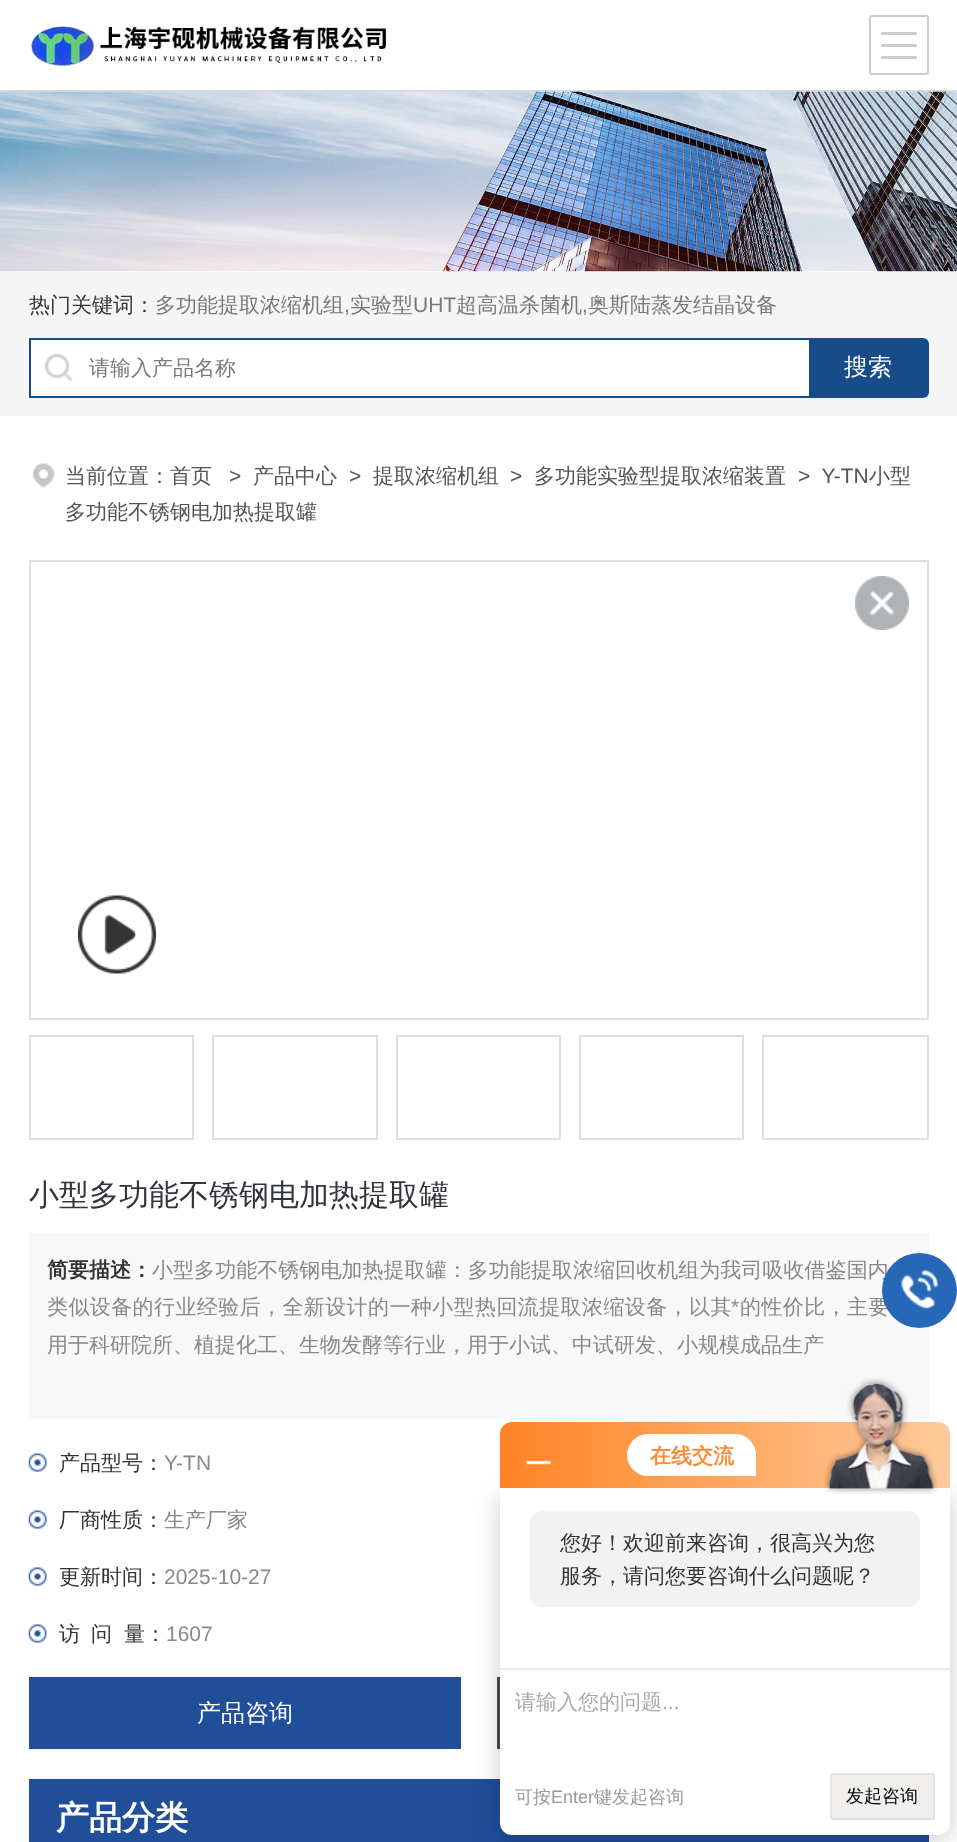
<!DOCTYPE html>
<meta charset="utf-8">
<style>body { margin: 0 } canvas { display: block }</style>
<canvas id="canvas" width="957" height="1842"></canvas>
<img id="img1" src="img_01.png" hidden>
<img id="img2" src="img_02.png" hidden>
<img id="img3" src="img_03.png" hidden>
<img id="img4" src="img_04.png" hidden>
<img id="img5" src="img_05.png" hidden>
<img id="img6" src="img_06.png" hidden>
<img id="img7" src="img_07.png" hidden>
<img id="img8" src="img_09.png" hidden>
<img id="img9" src="img_10.png" hidden>
<img id="img10" src="img_08.png" hidden>
<script>
window.onload = function () {
	const canvas = document.getElementById("canvas");
	const ctx = canvas.getContext("2d");
	ctx.miterLimit = 4;
	ctx.fontKerning = "normal";
	function txt(s, x, y) {
		ctx.fillText(s, x, y);
	}
	function fill(x, y, w, h) {
		ctx.fillRect(x, y, w, h);
	}
	function round(x, y, w, h, r) {
		ctx.beginPath();
		ctx.roundRect(x, y, w, h, r);
		ctx.fill();
	}
	function img(id, x, y, w, h) {
		ctx.drawImage(document.getElementById(id), x, y, w, h);
	}
	let gradient;

	ctx.fillStyle = "#FFFFFF";
	fill(0, 0, 957, 1842);
	ctx.fillStyle = "#EEEEEE";
	fill(0, 90, 957, 2);
	ctx.save();
	ctx.beginPath();
	ctx.rect(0, 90, 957, 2);
	ctx.clip();
	ctx.fillStyle = "rgba(0, 0, 0, 0.1)";
	ctx.filter = "blur(6px)";
	ctx.beginPath();
	ctx.rect(0, 6, 957, 90);
	ctx.fill();
	ctx.filter = "none";
	ctx.restore();
	img("img1", 31, 26, 355, 40);
	ctx.beginPath();
	ctx.roundRect(870, 16, 58, 58, 2);
	ctx.strokeStyle = "#CCCCCC";
	ctx.lineWidth = 2;
	ctx.stroke();
	ctx.fillStyle = "#CCCCCC";
	round(881, 32, 36, 3, 1.5);
	round(881, 44, 36, 3, 1.5);
	round(881, 56, 36, 3, 1.5);
	img("img2", 0, 91, 957, 181);
	ctx.fillStyle = "#F5F5F5";
	fill(0, 272, 957, 144);
	ctx.fillStyle = "#FFFFFF";
	fill(31, 340, 778, 56);
	img("img3", 44, 353, 29, 29);
	ctx.fillStyle = "#174B89";
	fill(29, 338, 780, 2);
	fill(29, 396, 780, 2);
	fill(29, 338, 2, 60);
	ctx.beginPath();
	ctx.roundRect(809, 338, 120, 60, [0, 6, 6, 0]);
	ctx.fill();
	img("img4", 32, 463, 23, 25);
	ctx.strokeStyle = "#DFDFDF";
	ctx.strokeRect(30, 561, 898, 458);
	img("img5", 855, 576, 54, 54);
	img("img6", 78, 895, 78, 79);
	ctx.strokeRect(30, 1036, 163, 103);
	ctx.strokeRect(213, 1036, 164, 103);
	ctx.strokeRect(397, 1036, 163, 103);
	ctx.strokeRect(580, 1036, 163, 103);
	ctx.strokeRect(763, 1036, 165, 103);
	ctx.fillStyle = "#F8F8F8";
	fill(29, 1233, 900, 186);
	img("img7", 28, 1453, 19, 19);
	img("img7", 28, 1510, 19, 19);
	img("img7", 28, 1567, 19, 19);
	img("img7", 28, 1624, 19, 19);
	ctx.fillStyle = "#204E99";
	fill(29, 1677, 432, 72);
	ctx.fillStyle = "#4A4A4A";
	fill(497, 1677, 3, 72);
	ctx.fillStyle = "#204E99";
	fill(29, 1779, 900, 63);
	ctx.fillStyle = "rgba(0, 0, 0, 0.2)";
	ctx.filter = "blur(12px)";
	ctx.beginPath();
	ctx.roundRect(500, 1494, 450, 347, 12);
	ctx.fill();
	ctx.filter = "none";
	gradient = ctx.createLinearGradient(500, 1455, 950, 1455);
	gradient.addColorStop(0, "#FF8324");
	gradient.addColorStop(1, "#FECB9C");
	ctx.fillStyle = gradient;
	ctx.beginPath();
	ctx.roundRect(500, 1422, 450, 66, [12, 12, 0, 0]);
	ctx.fill();
	img("img8", 526, 1460, 25, 5);
	ctx.fillStyle = "#FFFFFF";
	ctx.beginPath();
	ctx.roundRect(627, 1434, 129, 42, [21, 21, 0, 21]);
	ctx.fill();
	ctx.beginPath();
	ctx.roundRect(500, 1488, 450, 347, [0, 0, 12, 12]);
	ctx.fill();
	img("img9", 824, 1378, 114, 116);
	ctx.fillStyle = "#F2F2F2";
	round(530, 1511, 390, 96, 12);
	ctx.fillStyle = "#EAEAEA";
	fill(500, 1668, 450, 2);
	ctx.fillStyle = "#F0EFED";
	ctx.beginPath();
	ctx.roundRect(831, 1774, 103, 45, 2);
	ctx.fill();
	ctx.strokeStyle = "#E2E2E2";
	ctx.stroke();
	ctx.font = "500 21px WenQuanYi Zen Hei";
	ctx.fillStyle = "#32353A";
	txt("热门关键词：", 29, 312);
	ctx.fillStyle = "#797979";
	txt("多功能提取浓缩机组", 155, 312);
	ctx.font = "21px Liberation Sans";
	txt(",", 344, 312);
	ctx.font = "500 21px WenQuanYi Zen Hei";
	txt("实验型", 350, 312);
	ctx.font = "21px Liberation Sans";
	txt("UHT", 413, 312);
	ctx.font = "500 21px WenQuanYi Zen Hei";
	txt("超高温杀菌机", 456, 312);
	ctx.font = "21px Liberation Sans";
	txt(",", 582, 312);
	ctx.font = "500 21px WenQuanYi Zen Hei";
	txt("奥斯陆蒸发结晶设备", 588, 312);
	txt("请输入产品名称", 89, 375);
	ctx.font = "500 24px WenQuanYi Zen Hei";
	ctx.fillStyle = "#FFFFFF";
	txt("搜索", 844, 375);
	ctx.font = "500 21px WenQuanYi Zen Hei";
	ctx.fillStyle = "#545454";
	txt("当前位置：首页", 65, 483);
	ctx.font = "21px Liberation Sans";
	txt(">", 229, 483);
	ctx.font = "500 21px WenQuanYi Zen Hei";
	txt("产品中心", 253, 483);
	ctx.font = "21px Liberation Sans";
	txt(">", 349, 483);
	ctx.font = "500 21px WenQuanYi Zen Hei";
	txt("提取浓缩机组", 373, 483);
	ctx.font = "21px Liberation Sans";
	txt(">", 510, 483);
	ctx.font = "500 21px WenQuanYi Zen Hei";
	txt("多功能实验型提取浓缩装置", 534, 483);
	ctx.font = "21px Liberation Sans";
	txt(">  Y-TN", 798, 483);
	ctx.font = "500 21px WenQuanYi Zen Hei";
	txt("小型", 869, 483);
	txt("多功能不锈钢电加热提取罐", 65, 519);
	ctx.font = "500 30px WenQuanYi Zen Hei";
	ctx.fillStyle = "#32353A";
	txt("小型多功能不锈钢电加热提取罐", 29, 1205);
	ctx.font = "bold 21px WenQuanYi Zen Hei";
	ctx.fillStyle = "#333333";
	txt("简要描述：", 47, 1277);
	ctx.letterSpacing = "0.05px";
	ctx.font = "500 21px WenQuanYi Zen Hei";
	ctx.fillStyle = "#888888";
	txt("小型多功能不锈钢电加热提取罐：多功能提取浓缩回收机组为我司吸收借鉴国内", 152, 1277);
	ctx.letterSpacing = "0.4px";
	txt("类似设备的行业经验后，全新设计的一种小型热回流提取浓缩设备，以其", 47, 1314);
	ctx.font = "21px Liberation Sans";
	txt("*", 731, 1314);
	ctx.font = "500 21px WenQuanYi Zen Hei";
	txt("的性价比，主要", 740, 1314);
	ctx.letterSpacing = "0px";
	txt("用于科研院所、植提化工、生物发酵等行业，用于小试、中试研发、小规模成品生产", 47, 1352);
	ctx.fillStyle = "#333333";
	txt("产品型号：", 59, 1470);
	ctx.font = "21px Liberation Sans";
	ctx.fillStyle = "#888888";
	txt("Y-TN", 164, 1470);
	ctx.font = "500 21px WenQuanYi Zen Hei";
	ctx.fillStyle = "#333333";
	txt("厂商性质：", 59, 1527);
	ctx.fillStyle = "#888888";
	txt("生产厂家", 164, 1527);
	ctx.fillStyle = "#333333";
	txt("更新时间：", 59, 1584);
	ctx.font = "21px Liberation Sans";
	ctx.fillStyle = "#888888";
	txt("2025-10-27", 164, 1584);
	ctx.font = "500 21px WenQuanYi Zen Hei";
	ctx.fillStyle = "#333333";
	txt("访", 59, 1641);
	txt("问", 91, 1641);
	txt("量：", 124, 1641);
	ctx.font = "21px Liberation Sans";
	ctx.fillStyle = "#888888";
	txt("1607", 166, 1641);
	ctx.font = "500 24px WenQuanYi Zen Hei";
	ctx.fillStyle = "#FFFFFF";
	txt("产品咨询", 197, 1721);
	ctx.font = "bold 33px WenQuanYi Zen Hei";
	txt("产品分类", 56, 1829);
	ctx.fillStyle = "#2668B7";
	ctx.beginPath();
	ctx.arc(919.5, 1290.5, 37.5, 0, Math.PI * 2);
	ctx.fill();
	img("img10", 901, 1270, 37, 39);
	ctx.font = "bold 21px WenQuanYi Zen Hei";
	ctx.fillStyle = "#FB8B36";
	txt("在线交流", 650, 1463);
	ctx.font = "500 21px WenQuanYi Zen Hei";
	ctx.fillStyle = "#333333";
	txt("您好！欢迎前来咨询，很高兴为您", 560, 1550);
	txt("服务，请问您要咨询什么问题呢？", 560, 1583);
	ctx.fillStyle = "#AAAAAA";
	txt("请输入您的问题", 515, 1709);
	ctx.font = "21px Liberation Sans";
	txt("...", 662, 1709);
	ctx.font = "500 18px WenQuanYi Zen Hei";
	ctx.fillStyle = "#999999";
	txt("可按", 515, 1803);
	ctx.font = "18px Liberation Sans";
	txt("Enter", 551, 1803);
	ctx.font = "500 18px WenQuanYi Zen Hei";
	txt("键发起咨询", 594, 1803);
	ctx.fillStyle = "#000000";
	txt("发起咨询", 846, 1802);
};
</script>
